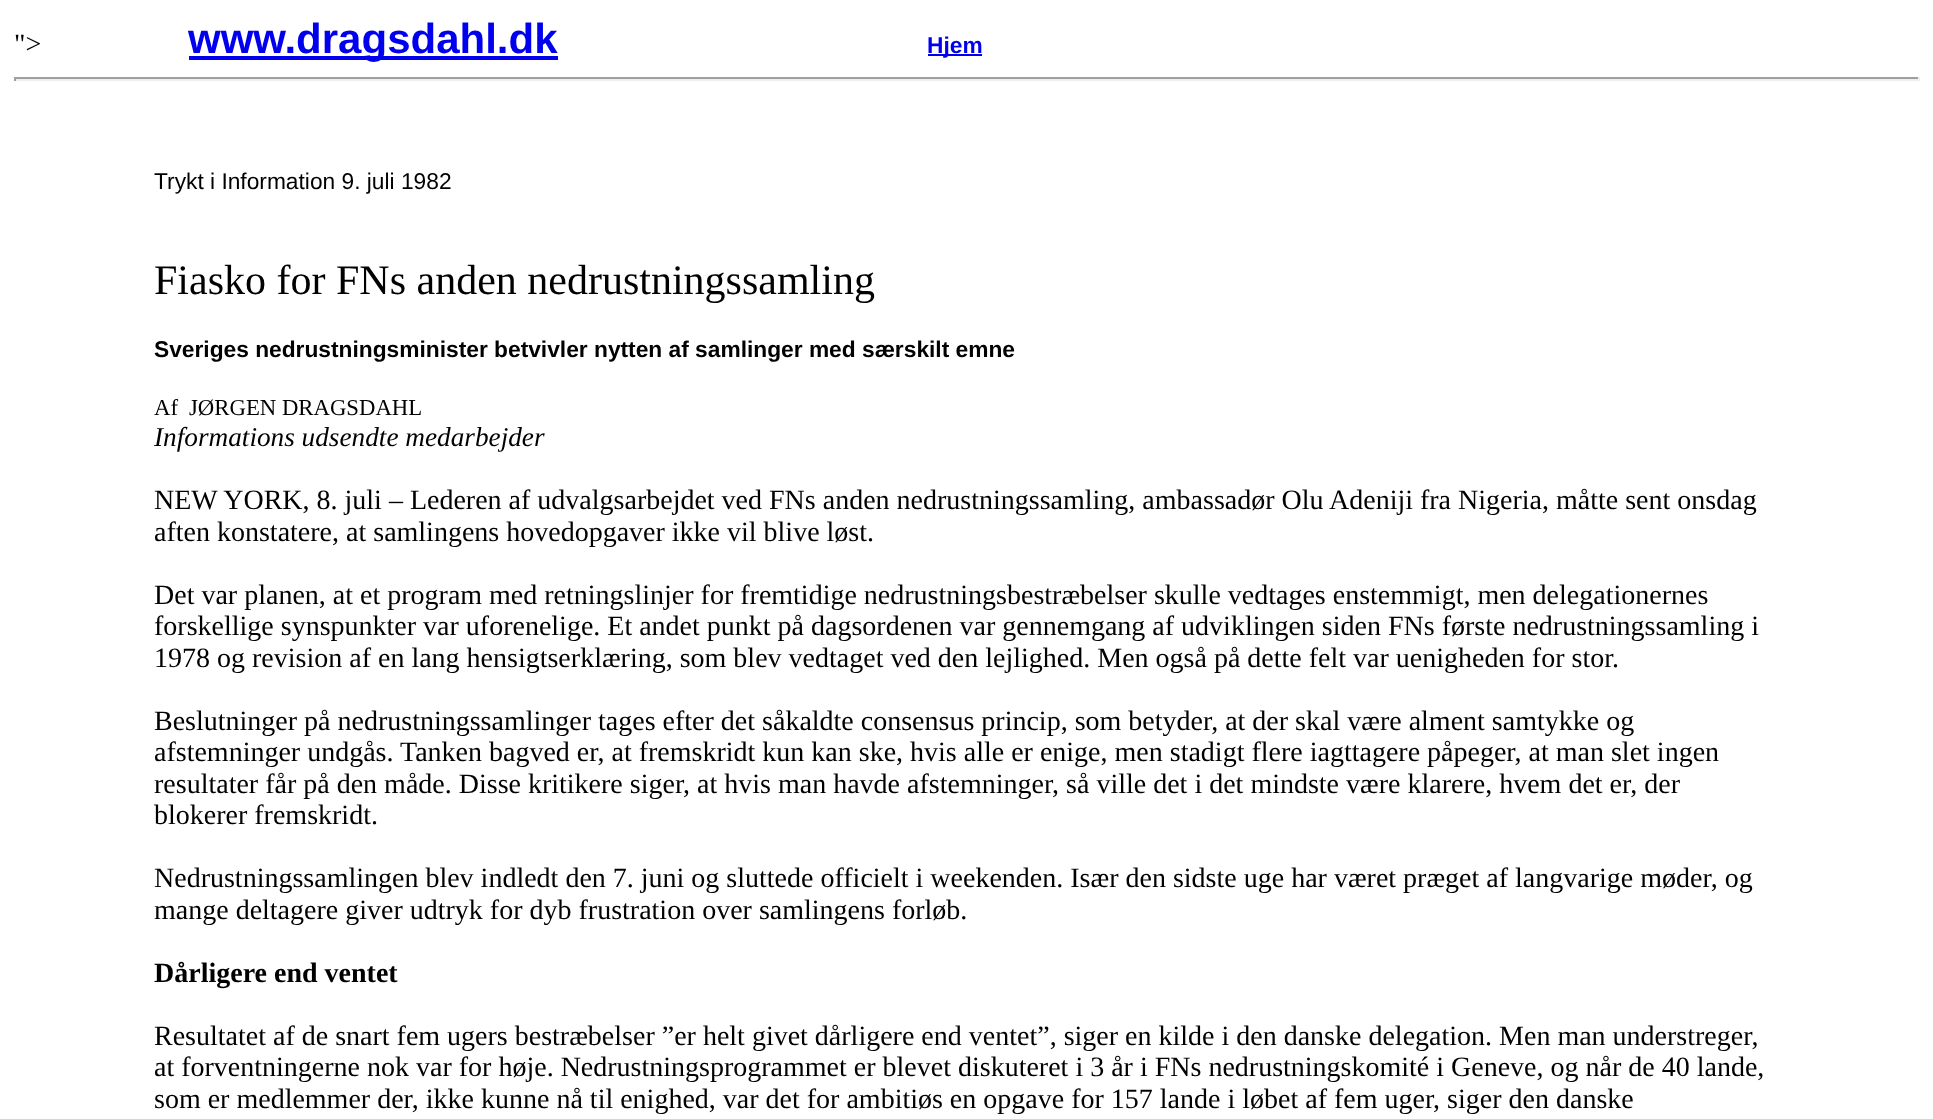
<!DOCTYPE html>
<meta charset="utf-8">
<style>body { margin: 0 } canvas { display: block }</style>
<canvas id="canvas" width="1933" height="1119"></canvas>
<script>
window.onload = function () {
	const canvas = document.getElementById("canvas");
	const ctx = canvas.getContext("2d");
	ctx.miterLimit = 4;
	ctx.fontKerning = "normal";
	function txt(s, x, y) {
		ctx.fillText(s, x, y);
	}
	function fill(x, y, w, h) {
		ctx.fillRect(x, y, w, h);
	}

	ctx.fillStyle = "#FFFFFF";
	fill(0, 0, 1933, 1119);
	ctx.fillStyle = "#0000EE";
	fill(189, 56, 369, 4);
	fill(928, 54, 54, 2);
	ctx.fillStyle = "#9F9F9F";
	fill(14, 77, 1906, 2);
	ctx.fillStyle = "#EEEEEE";
	fill(1918, 77, 2, 4);
	fill(14, 79, 1906, 2);
	ctx.fillStyle = "#9F9F9F";
	fill(14, 77, 2, 4);
	ctx.font = "28px Liberation Serif";
	ctx.fillStyle = "#000000";
	txt("\">", 14, 53);
	ctx.font = "bold 42px Liberation Sans";
	ctx.fillStyle = "#0000EE";
	txt("www.dragsdahl.dk", 188, 53);
	ctx.font = "bold 22.75px Liberation Sans";
	txt("Hjem", 927, 53);
	ctx.font = "22.75px Liberation Sans";
	ctx.fillStyle = "#000000";
	txt("Trykt i Information 9. juli 1982", 154, 189);
	ctx.font = "42px Liberation Serif";
	txt("Fiasko for FNs anden nedrustningssamling", 154, 294);
	ctx.font = "bold 22.75px Liberation Sans";
	txt("Sveriges nedrustningsminister betvivler nytten af samlinger med særskilt emne", 154, 357);
	ctx.font = "22.75px Liberation Serif";
	txt("Af", 154, 415);
	txt("JØRGEN DRAGSDAHL", 189, 415);
	ctx.font = "italic 27.25px Liberation Serif";
	txt("Informations udsendte medarbejder", 154, 446);
	ctx.font = "28px Liberation Serif";
	txt("NEW YORK, 8. juli – Lederen af udvalgsarbejdet ved FNs anden nedrustningssamling, ambassadør Olu Adeniji fra Nigeria, måtte sent onsdag", 154, 509);
	txt("aften konstatere, at samlingens hovedopgaver ikke vil blive løst.", 154, 541);
	txt("Det var planen, at et program med retningslinjer for fremtidige nedrustningsbestræbelser skulle vedtages enstemmigt, men delegationernes", 154, 604);
	txt("forskellige synspunkter var uforenelige. Et andet punkt på dagsordenen var gennemgang af udviklingen siden FNs første nedrustningssamling i", 154, 635);
	txt("1978 og revision af en lang hensigtserklæring, som blev vedtaget ved den lejlighed. Men også på dette felt var uenigheden for stor.", 154, 667);
	txt("Beslutninger på nedrustningssamlinger tages efter det såkaldte consensus princip, som betyder, at der skal være alment samtykke og", 154, 730);
	txt("afstemninger undgås. Tanken bagved er, at fremskridt kun kan ske, hvis alle er enige, men stadigt flere iagttagere påpeger, at man slet ingen", 154, 761);
	txt("resultater får på den måde. Disse kritikere siger, at hvis man havde afstemninger, så ville det i det mindste være klarere, hvem det er, der", 154, 793);
	txt("blokerer fremskridt.", 154, 824);
	txt("Nedrustningssamlingen blev indledt den 7. juni og sluttede officielt i weekenden. Især den sidste uge har været præget af langvarige møder, og", 154, 887);
	txt("mange deltagere giver udtryk for dyb frustration over samlingens forløb.", 154, 919);
	ctx.font = "bold 28px Liberation Serif";
	txt("Dårligere end ventet", 154, 982);
	ctx.font = "28px Liberation Serif";
	txt("Resultatet af de snart fem ugers bestræbelser ”er helt givet dårligere end ventet”, siger en kilde i den danske delegation. Men man understreger,", 154, 1045);
	txt("at forventningerne nok var for høje. Nedrustningsprogrammet er blevet diskuteret i 3 år i FNs nedrustningskomité i Geneve, og når de 40 lande,", 154, 1076);
	txt("som er medlemmer der, ikke kunne nå til enighed, var det for ambitiøs en opgave for 157 lande i løbet af fem uger, siger den danske", 154, 1108);
};
</script>
